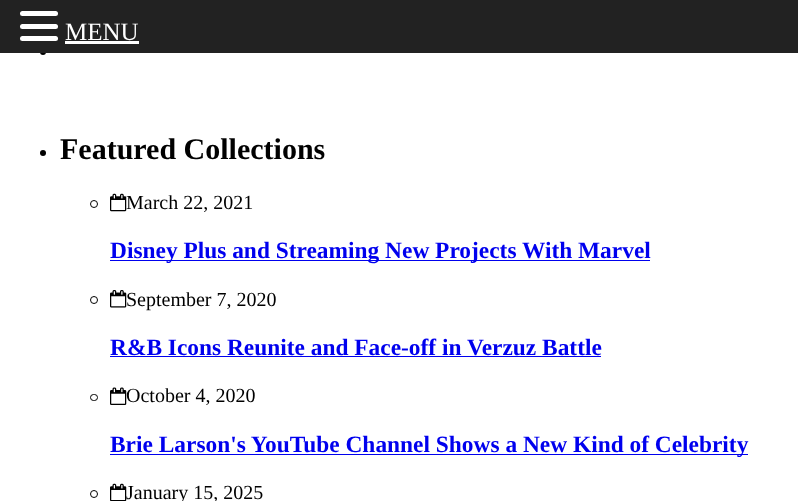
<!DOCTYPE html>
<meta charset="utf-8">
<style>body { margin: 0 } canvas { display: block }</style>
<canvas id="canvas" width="798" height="501"></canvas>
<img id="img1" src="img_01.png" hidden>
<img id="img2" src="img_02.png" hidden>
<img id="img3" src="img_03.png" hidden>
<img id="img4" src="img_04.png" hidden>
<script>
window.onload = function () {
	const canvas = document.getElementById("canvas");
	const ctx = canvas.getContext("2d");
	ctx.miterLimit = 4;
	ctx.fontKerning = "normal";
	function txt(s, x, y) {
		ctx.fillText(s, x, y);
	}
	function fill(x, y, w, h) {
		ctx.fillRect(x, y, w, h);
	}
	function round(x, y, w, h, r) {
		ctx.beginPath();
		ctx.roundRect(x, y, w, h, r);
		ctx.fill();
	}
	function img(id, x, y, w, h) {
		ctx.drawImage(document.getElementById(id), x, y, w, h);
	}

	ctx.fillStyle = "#FFFFFF";
	fill(0, 0, 798, 501);
	ctx.fillStyle = "#000000";
	ctx.beginPath();
	ctx.arc(43, 52, 3, 0, Math.PI * 2);
	ctx.fill();
	ctx.fillStyle = "#222222";
	fill(0, 0, 798, 53);
	ctx.fillStyle = "#FFFFFF";
	round(20, 11, 38, 5, 2.5);
	round(20, 24, 38, 5, 2.5);
	round(20, 36, 38, 5, 2.5);
	fill(65, 41, 74, 3);
	ctx.fillStyle = "#000000";
	ctx.beginPath();
	ctx.arc(43, 153, 3, 0, Math.PI * 2);
	ctx.fill();
	ctx.beginPath();
	ctx.arc(94, 204, 3.5, 0, Math.PI * 2);
	ctx.strokeStyle = "#000000";
	ctx.stroke();
	img("img1", 110, 193, 17, 19);
	ctx.fillStyle = "#0000EE";
	fill(110, 260, 540, 1);
	ctx.beginPath();
	ctx.arc(94, 300, 3.5, 0, Math.PI * 2);
	ctx.stroke();
	img("img2", 110, 290, 17, 18);
	fill(110, 356, 491, 1);
	ctx.beginPath();
	ctx.roundRect(90.5, 394.5, 7, 6, 3);
	ctx.stroke();
	img("img3", 110, 387, 17, 18);
	fill(110, 454, 638, 1);
	ctx.beginPath();
	ctx.arc(94, 494, 3.5, 0, Math.PI * 2);
	ctx.stroke();
	img("img4", 110, 483, 17, 18);
	ctx.font = "25px Liberation Serif";
	ctx.fillStyle = "#FFFFFF";
	txt("MENU", 65, 40);
	ctx.font = "bold 30px Liberation Serif";
	ctx.fillStyle = "#000000";
	txt("Featured Collections", 60, 159);
	ctx.font = "20px Liberation Serif";
	txt("March 22, 2021", 126, 209);
	ctx.font = "bold 23.4px Liberation Serif";
	ctx.fillStyle = "#0000EE";
	txt("Disney Plus and Streaming New Projects With Marvel", 110, 258);
	ctx.font = "20px Liberation Serif";
	ctx.fillStyle = "#000000";
	txt("September 7, 2020", 126, 306);
	ctx.font = "bold 23.4px Liberation Serif";
	ctx.fillStyle = "#0000EE";
	txt("R&B Icons Reunite and Face-off in Verzuz Battle", 110, 355);
	ctx.font = "20px Liberation Serif";
	ctx.fillStyle = "#000000";
	txt("October 4, 2020", 126, 402);
	ctx.font = "bold 23.4px Liberation Serif";
	ctx.fillStyle = "#0000EE";
	txt("Brie Larson's YouTube Channel Shows a New Kind of Celebrity", 110, 452);
	ctx.font = "20px Liberation Serif";
	ctx.fillStyle = "#000000";
	txt("January 15, 2025", 126, 499);
};
</script>
